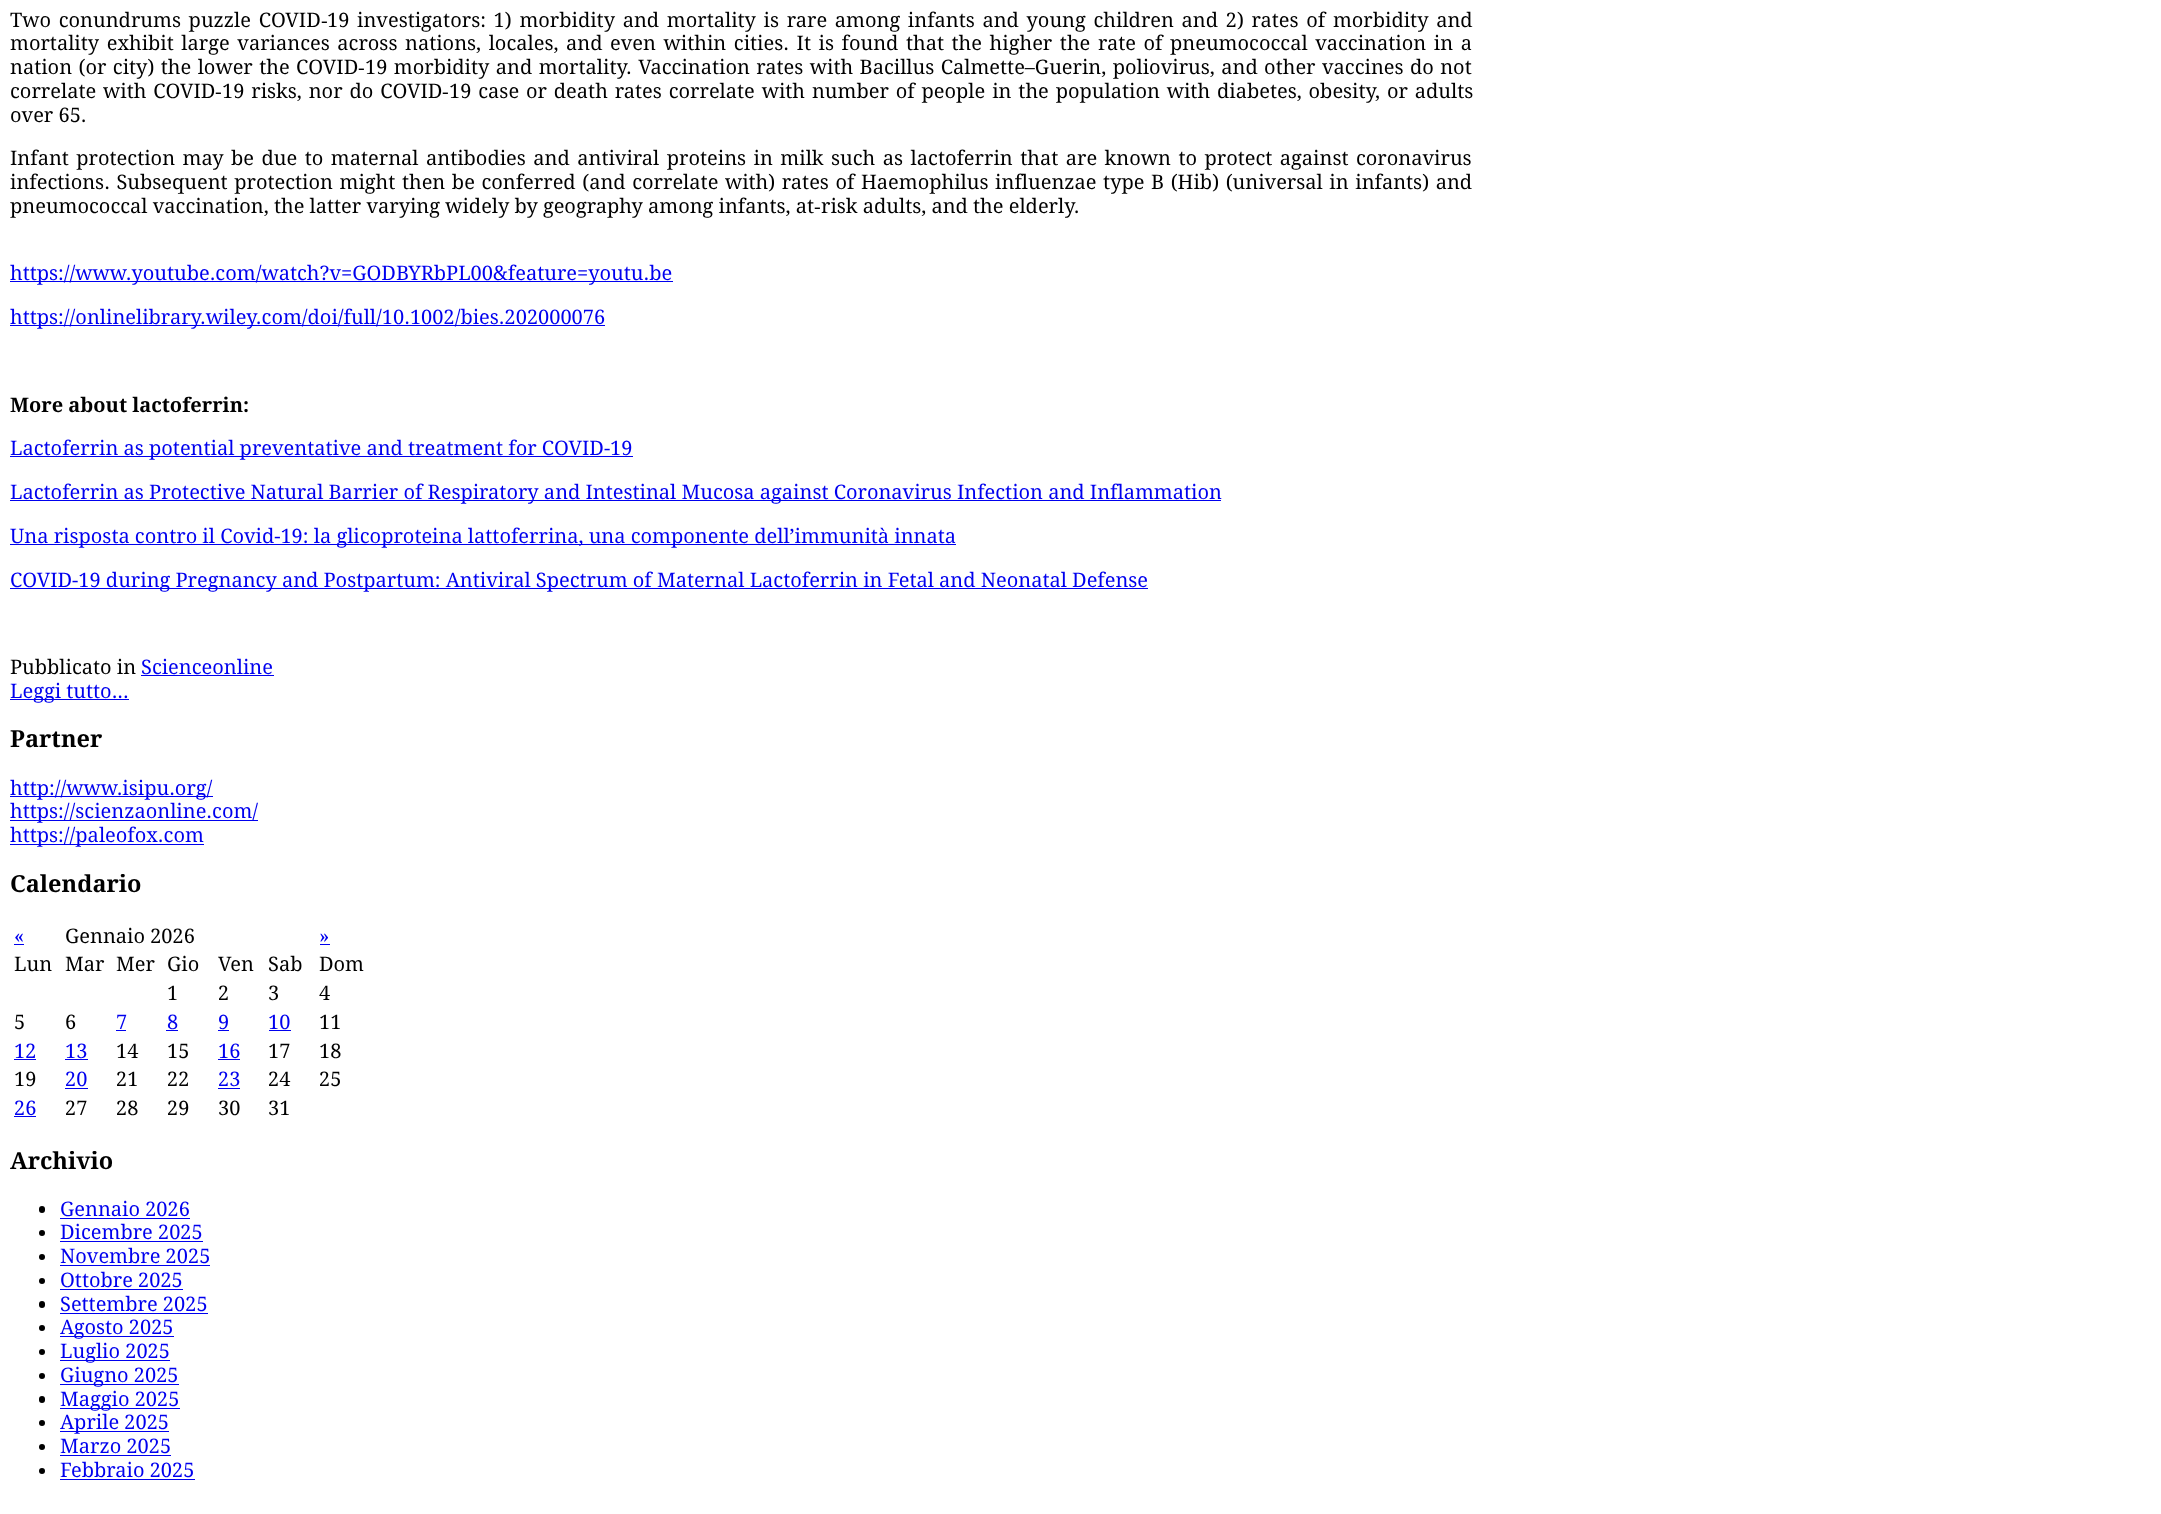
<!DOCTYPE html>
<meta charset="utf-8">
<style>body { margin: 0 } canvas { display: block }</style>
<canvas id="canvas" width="2161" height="1514"></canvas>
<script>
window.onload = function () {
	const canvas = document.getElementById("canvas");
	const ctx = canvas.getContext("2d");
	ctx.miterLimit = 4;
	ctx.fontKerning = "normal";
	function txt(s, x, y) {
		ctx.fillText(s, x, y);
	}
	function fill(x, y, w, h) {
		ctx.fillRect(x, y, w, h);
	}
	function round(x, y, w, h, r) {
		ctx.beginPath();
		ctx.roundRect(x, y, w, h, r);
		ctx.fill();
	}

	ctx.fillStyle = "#FFFFFF";
	fill(0, 0, 2161, 1514);
	ctx.fillStyle = "#0000EE";
	fill(10, 281, 663, 1);
	fill(10, 325, 595, 1);
	fill(10, 456, 623, 1);
	fill(10, 500, 1211, 1);
	fill(10, 544, 946, 1);
	fill(10, 588, 1138, 1);
	fill(141, 675, 133, 1);
	fill(10, 699, 119, 1);
	fill(10, 796, 203, 1);
	fill(10, 820, 248, 1);
	fill(10, 844, 194, 1);
	fill(14, 944, 10, 1);
	fill(320, 944, 10, 1);
	fill(116, 1030, 10, 1);
	fill(166, 1030, 12, 1);
	fill(218, 1030, 11, 1);
	fill(269, 1030, 22, 1);
	fill(14, 1059, 22, 1);
	fill(65, 1059, 23, 1);
	fill(218, 1059, 22, 1);
	fill(65, 1088, 23, 1);
	fill(218, 1088, 22, 1);
	fill(14, 1116, 22, 1);
	ctx.fillStyle = "#000000";
	round(39, 1206, 6, 7, 3);
	ctx.fillStyle = "#0000EE";
	fill(60, 1218, 130, 1);
	ctx.fillStyle = "#000000";
	ctx.beginPath();
	ctx.arc(42, 1233, 3, 0, Math.PI * 2);
	ctx.fill();
	ctx.fillStyle = "#0000EE";
	fill(60, 1241, 143, 1);
	ctx.fillStyle = "#000000";
	ctx.beginPath();
	ctx.arc(42, 1257, 3, 0, Math.PI * 2);
	ctx.fill();
	ctx.fillStyle = "#0000EE";
	fill(60, 1265, 150, 1);
	ctx.fillStyle = "#000000";
	ctx.beginPath();
	ctx.arc(42, 1281, 3, 0, Math.PI * 2);
	ctx.fill();
	ctx.fillStyle = "#0000EE";
	fill(60, 1289, 123, 1);
	ctx.fillStyle = "#000000";
	round(39, 1301, 6, 7, 3);
	ctx.fillStyle = "#0000EE";
	fill(60, 1313, 148, 1);
	ctx.fillStyle = "#000000";
	ctx.beginPath();
	ctx.arc(42, 1328, 3, 0, Math.PI * 2);
	ctx.fill();
	ctx.fillStyle = "#0000EE";
	fill(60, 1336, 114, 1);
	ctx.fillStyle = "#000000";
	ctx.beginPath();
	ctx.arc(42, 1352, 3, 0, Math.PI * 2);
	ctx.fill();
	ctx.fillStyle = "#0000EE";
	fill(60, 1360, 110, 1);
	ctx.fillStyle = "#000000";
	ctx.beginPath();
	ctx.arc(42, 1376, 3, 0, Math.PI * 2);
	ctx.fill();
	ctx.fillStyle = "#0000EE";
	fill(60, 1384, 119, 1);
	ctx.fillStyle = "#000000";
	round(39, 1396, 6, 7, 3);
	ctx.fillStyle = "#0000EE";
	fill(60, 1408, 120, 1);
	ctx.fillStyle = "#000000";
	ctx.beginPath();
	ctx.arc(42, 1423, 3, 0, Math.PI * 2);
	ctx.fill();
	ctx.fillStyle = "#0000EE";
	fill(60, 1431, 109, 1);
	ctx.fillStyle = "#000000";
	ctx.beginPath();
	ctx.arc(42, 1447, 3, 0, Math.PI * 2);
	ctx.fill();
	ctx.fillStyle = "#0000EE";
	fill(60, 1455, 111, 1);
	ctx.fillStyle = "#000000";
	ctx.beginPath();
	ctx.arc(42, 1471, 3, 0, Math.PI * 2);
	ctx.fill();
	ctx.fillStyle = "#0000EE";
	fill(60, 1479, 135, 1);
	ctx.wordSpacing = "2.5px";
	ctx.font = "20px Droid Serif";
	ctx.fillStyle = "#000000";
	txt("Two conundrums puzzle COVID", 10, 27);
	ctx.wordSpacing = "0px";
	ctx.font = "20px Liberation Serif";
	txt("‐", 321, 27);
	ctx.wordSpacing = "2.5px";
	ctx.font = "20px Droid Serif";
	txt("19 investigators: 1) morbidity and mortality is rare among infants and young children and 2) rates of morbidity and", 327, 27);
	ctx.wordSpacing = "2.4px";
	txt("mortality exhibit large variances across nations, locales, and even within cities. It is found that the higher the rate of pneumococcal vaccination in a", 10, 50);
	ctx.wordSpacing = "1.25px";
	txt("nation (or city) the lower the COVID", 10, 74);
	ctx.wordSpacing = "0px";
	ctx.font = "20px Liberation Serif";
	txt("‐", 358, 74);
	ctx.wordSpacing = "1.25px";
	ctx.font = "20px Droid Serif";
	txt("19 morbidity and mortality. Vaccination rates with Bacillus Calmette–Guerin, poliovirus, and other vaccines do not", 365, 74);
	ctx.wordSpacing = "1.7px";
	txt("correlate with COVID", 10, 98);
	ctx.wordSpacing = "0px";
	ctx.font = "20px Liberation Serif";
	txt("‐", 215, 98);
	ctx.wordSpacing = "1.7px";
	ctx.font = "20px Droid Serif";
	txt("19 risks, nor do COVID", 222, 98);
	ctx.wordSpacing = "0px";
	ctx.font = "20px Liberation Serif";
	txt("‐", 442, 98);
	ctx.wordSpacing = "1.7px";
	ctx.font = "20px Droid Serif";
	txt("19 case or death rates correlate with number of people in the population with diabetes, obesity, or adults", 449, 98);
	ctx.wordSpacing = "0px";
	txt("over 65.", 10, 122);
	ctx.wordSpacing = "2.3px";
	txt("Infant protection may be due to maternal antibodies and antiviral proteins in milk such as lactoferrin that are known to protect against coronavirus", 10, 165);
	ctx.wordSpacing = "1.4px";
	txt("infections. Subsequent protection might then be conferred (and correlate with) rates of Haemophilus influenzae type B (Hib) (universal in infants) and", 10, 189);
	ctx.wordSpacing = "0px";
	txt("pneumococcal vaccination, the latter varying widely by geography among infants, at", 10, 213);
	ctx.font = "20px Liberation Serif";
	txt("‐", 814, 213);
	ctx.font = "20px Droid Serif";
	txt("risk adults, and the elderly.", 821, 213);
	ctx.fillStyle = "#0000EE";
	txt("https://www.youtube.com/watch?v=GODBYRbPL00&feature=youtu.be", 10, 280);
	txt("https://onlinelibrary.wiley.com/doi/full/10.1002/bies.202000076", 10, 324);
	ctx.font = "bold 20px Droid Serif";
	ctx.fillStyle = "#000000";
	txt("More about lactoferrin:", 10, 412);
	ctx.font = "20px Droid Serif";
	ctx.fillStyle = "#0000EE";
	txt("Lactoferrin as potential preventative and treatment for COVID-19", 10, 455);
	txt("Lactoferrin as Protective Natural Barrier of Respiratory and Intestinal Mucosa against Coronavirus Infection and Inflammation", 10, 499);
	txt("Una risposta contro il Covid-19: la glicoproteina lattoferrina, una componente dell’immunità innata", 10, 543);
	txt("COVID-19 during Pregnancy and Postpartum: Antiviral Spectrum of Maternal Lactoferrin in Fetal and Neonatal Defense", 10, 587);
	ctx.fillStyle = "#000000";
	txt("Pubblicato in", 10, 674);
	ctx.fillStyle = "#0000EE";
	txt("Scienceonline", 141, 674);
	txt("Leggi tutto...", 10, 698);
	ctx.font = "bold 23.5px Droid Serif";
	ctx.fillStyle = "#000000";
	txt("Partner", 10, 747);
	ctx.font = "20px Droid Serif";
	ctx.fillStyle = "#0000EE";
	txt("http://www.isipu.org/", 10, 795);
	txt("https://scienzaonline.com/", 10, 818);
	txt("https://paleofox.com", 10, 842);
	ctx.font = "bold 23.5px Droid Serif";
	ctx.fillStyle = "#000000";
	txt("Calendario", 10, 892);
	ctx.font = "20px Droid Serif";
	ctx.fillStyle = "#0000EE";
	txt("«", 14, 943);
	ctx.fillStyle = "#000000";
	txt("Gennaio 2026", 65, 943);
	ctx.fillStyle = "#0000EE";
	txt("»", 319, 943);
	ctx.fillStyle = "#000000";
	txt("Lun", 14, 971);
	txt("Mar", 65, 971);
	txt("Mer", 116, 971);
	txt("Gio", 167, 971);
	txt("Ven", 218, 971);
	txt("Sab", 268, 971);
	txt("Dom", 319, 971);
	txt("1", 167, 1000);
	txt("2", 218, 1000);
	txt("3", 268, 1000);
	txt("4", 319, 1000);
	txt("5", 14, 1029);
	txt("6", 65, 1029);
	ctx.fillStyle = "#0000EE";
	txt("7", 116, 1029);
	txt("8", 167, 1029);
	txt("9", 218, 1029);
	txt("10", 268, 1029);
	ctx.fillStyle = "#000000";
	txt("11", 319, 1029);
	ctx.fillStyle = "#0000EE";
	txt("12", 14, 1058);
	txt("13", 65, 1058);
	ctx.fillStyle = "#000000";
	txt("14", 116, 1058);
	txt("15", 167, 1058);
	ctx.fillStyle = "#0000EE";
	txt("16", 218, 1058);
	ctx.fillStyle = "#000000";
	txt("17", 268, 1058);
	txt("18", 319, 1058);
	txt("19", 14, 1086);
	ctx.fillStyle = "#0000EE";
	txt("20", 65, 1086);
	ctx.fillStyle = "#000000";
	txt("21", 116, 1086);
	txt("22", 167, 1086);
	ctx.fillStyle = "#0000EE";
	txt("23", 218, 1086);
	ctx.fillStyle = "#000000";
	txt("24", 268, 1086);
	txt("25", 319, 1086);
	ctx.fillStyle = "#0000EE";
	txt("26", 14, 1115);
	ctx.fillStyle = "#000000";
	txt("27", 65, 1115);
	txt("28", 116, 1115);
	txt("29", 167, 1115);
	txt("30", 218, 1115);
	txt("31", 268, 1115);
	ctx.font = "bold 23.5px Droid Serif";
	txt("Archivio", 10, 1169);
	ctx.font = "20px Droid Serif";
	ctx.fillStyle = "#0000EE";
	txt("Gennaio 2026", 60, 1216);
	txt("Dicembre 2025", 60, 1239);
	txt("Novembre 2025", 60, 1263);
	txt("Ottobre 2025", 60, 1287);
	txt("Settembre 2025", 60, 1311);
	txt("Agosto 2025", 60, 1334);
	txt("Luglio 2025", 60, 1358);
	txt("Giugno 2025", 60, 1382);
	txt("Maggio 2025", 60, 1406);
	txt("Aprile 2025", 60, 1429);
	txt("Marzo 2025", 60, 1453);
	txt("Febbraio 2025", 60, 1477);
};
</script>
